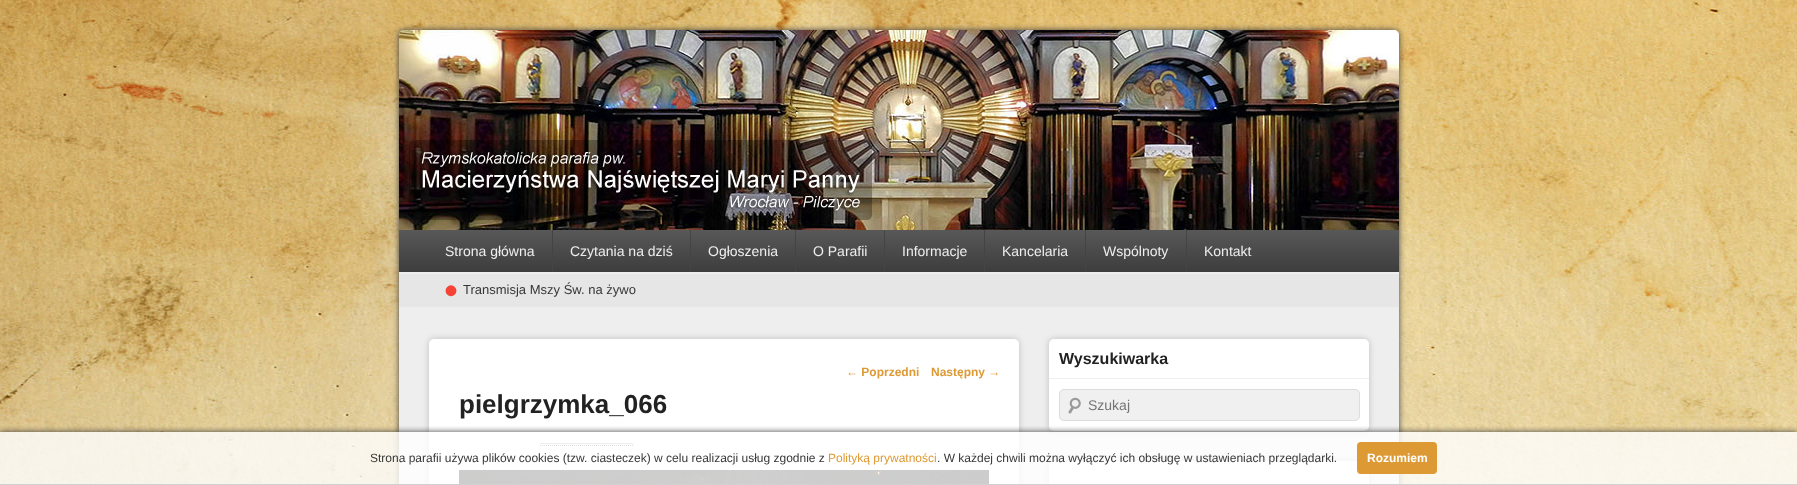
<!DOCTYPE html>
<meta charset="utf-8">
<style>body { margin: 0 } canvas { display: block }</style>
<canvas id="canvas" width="1797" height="485"></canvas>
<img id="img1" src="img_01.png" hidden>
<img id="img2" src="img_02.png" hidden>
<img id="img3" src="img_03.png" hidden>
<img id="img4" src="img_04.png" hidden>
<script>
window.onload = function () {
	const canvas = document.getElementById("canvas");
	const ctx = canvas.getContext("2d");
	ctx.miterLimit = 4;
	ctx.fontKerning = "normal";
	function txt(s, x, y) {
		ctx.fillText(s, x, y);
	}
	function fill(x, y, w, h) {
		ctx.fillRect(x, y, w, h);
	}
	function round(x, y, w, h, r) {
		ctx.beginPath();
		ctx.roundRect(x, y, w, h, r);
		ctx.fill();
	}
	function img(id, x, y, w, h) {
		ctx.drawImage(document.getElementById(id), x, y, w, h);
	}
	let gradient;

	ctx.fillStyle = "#FFFFFF";
	fill(0, 0, 1797, 485);
	img("img1", 0, 0, 1797, 484);
	ctx.fillStyle = "#404040";
	ctx.filter = "blur(3px)";
	ctx.beginPath();
	ctx.roundRect(399, 30, 1000, 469, 5);
	ctx.fill();
	ctx.filter = "none";
	ctx.fillStyle = "#EEEEEE";
	round(399, 30, 1000, 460, 5);
	img("img2", 399, 30, 1000, 200);
	gradient = ctx.createLinearGradient(899, 230, 899, 272);
	gradient.addColorStop(0, "#585858");
	gradient.addColorStop(1, "#3D3D3D");
	ctx.fillStyle = gradient;
	fill(399, 230, 1000, 42);
	ctx.fillStyle = "#444444";
	fill(552, 230, 1, 42);
	fill(690, 230, 1, 42);
	fill(795, 230, 1, 42);
	fill(884, 230, 1, 42);
	fill(984, 230, 1, 42);
	fill(1085, 230, 1, 42);
	fill(1186, 230, 1, 42);
	ctx.fillStyle = "#E6E6E6";
	fill(399, 274, 1000, 33);
	ctx.fillStyle = "rgba(0, 0, 0, 0.2)";
	ctx.filter = "blur(3px)";
	ctx.beginPath();
	ctx.roundRect(429, 339, 590, 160, 5);
	ctx.fill();
	ctx.filter = "none";
	ctx.fillStyle = "#FFFFFF";
	round(429, 339, 590, 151, 5);
	ctx.beginPath();
	ctx.moveTo(540.5, 443.5);
	ctx.lineTo(634, 443.5);
	ctx.strokeStyle = "#666666";
	ctx.setLineDash([1, 1]);
	ctx.stroke();
	ctx.beginPath();
	ctx.moveTo(540, 445.5);
	ctx.lineTo(634, 445.5);
	ctx.stroke();
	img("img3", 459, 470, 530, 14);
	ctx.fillStyle = "rgba(0, 0, 0, 0.2)";
	ctx.filter = "blur(3px)";
	ctx.beginPath();
	ctx.roundRect(1049, 339, 320, 92, 5);
	ctx.fill();
	ctx.filter = "none";
	ctx.fillStyle = "#FFFFFF";
	round(1049, 339, 320, 92, 5);
	ctx.fillStyle = "#EEEEEE";
	fill(1049, 378, 320, 1);
	ctx.fillStyle = "#F0F0F0";
	round(1059, 389, 301, 32, 5);
	img("img4", 1068, 397, 13, 17);
	ctx.beginPath();
	ctx.roundRect(1059.5, 389.5, 300, 31, 4.5);
	ctx.strokeStyle = "#DDDDDD";
	ctx.setLineDash([]);
	ctx.stroke();
	ctx.fillStyle = "rgba(0, 0, 0, 0.2)";
	ctx.filter = "blur(3px)";
	ctx.beginPath();
	ctx.roundRect(1049, 461, 320, 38, 5);
	ctx.fill();
	ctx.filter = "none";
	ctx.fillStyle = "#FFFFFF";
	round(1049, 461, 320, 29, 5);
	ctx.save();
	ctx.beginPath();
	ctx.rect(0, 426, 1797, 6);
	ctx.clip();
	ctx.fillStyle = "#404040";
	ctx.filter = "blur(3px)";
	ctx.beginPath();
	ctx.rect(0, 432, 1797, 53);
	ctx.fill();
	ctx.filter = "none";
	ctx.restore();
	ctx.fillStyle = "rgba(255, 255, 255, 0.8)";
	fill(0, 432, 1797, 52);
	ctx.fillStyle = "#D3D0D0";
	fill(0, 484, 1797, 1);
	ctx.fillStyle = "#DD9933";
	round(1357, 442, 80, 32, 4);
	ctx.font = "14px Liberation Sans";
	ctx.fillStyle = "#EEEEEE";
	txt("Strona główna", 445, 256);
	txt("Czytania na dziś", 570, 256);
	txt("Ogłoszenia", 708, 256);
	txt("O Parafii", 813, 256);
	txt("Informacje", 902, 256);
	txt("Kancelaria", 1002, 256);
	txt("Wspólnoty", 1103, 256);
	txt("Kontakt", 1204, 256);
	ctx.font = "40px Liberation Sans";
	ctx.fillStyle = "#F54337";
	txt("•", 444, 304);
	ctx.font = "13px Liberation Sans";
	ctx.fillStyle = "#373737";
	txt("Transmisja Mszy Św. na żywo", 463, 294);
	ctx.font = "bold 12px Liberation Sans";
	ctx.fillStyle = "#DD9933";
	txt("← Poprzedni", 846, 376);
	txt("Następny →", 931, 376);
	ctx.font = "bold 26px Liberation Sans";
	ctx.fillStyle = "#222222";
	txt("pielgrzymka_066", 459, 413);
	ctx.font = "bold 16px Liberation Sans";
	txt("Wyszukiwarka", 1059, 364);
	ctx.font = "14px Liberation Sans";
	ctx.fillStyle = "#757575";
	txt("Szukaj", 1088, 410);
	ctx.font = "12px Liberation Sans";
	ctx.fillStyle = "#373737";
	txt("Strona parafii używa plików cookies (tzw. ciasteczek) w celu realizacji usług zgodnie z", 370, 462);
	ctx.fillStyle = "#DD9933";
	txt("Polityką prywatności", 828, 462);
	ctx.fillStyle = "#373737";
	txt(". W każdej chwili można wyłączyć ich obsługę w ustawieniach przeglądarki.", 937, 462);
	ctx.font = "bold 12px Liberation Sans";
	ctx.fillStyle = "#FFFFFF";
	txt("Rozumiem", 1367, 462);
};
</script>
